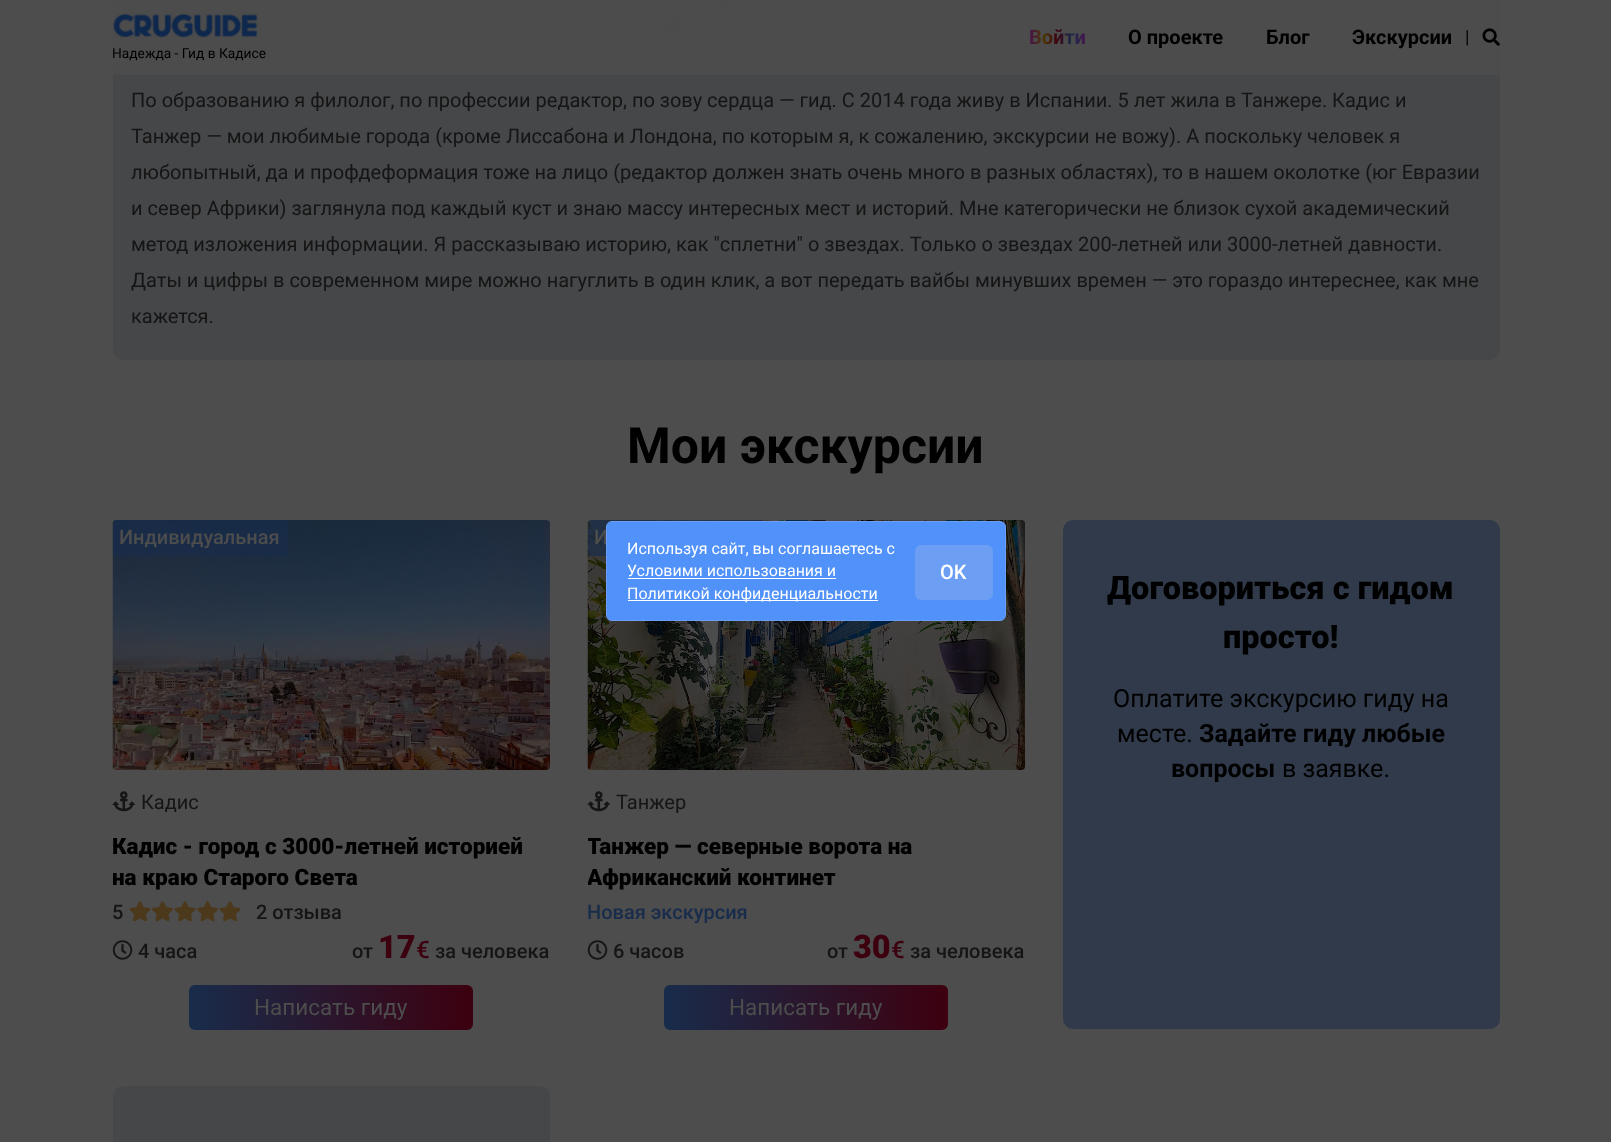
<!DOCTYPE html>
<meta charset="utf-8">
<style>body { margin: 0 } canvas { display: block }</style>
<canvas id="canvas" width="1611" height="1142"></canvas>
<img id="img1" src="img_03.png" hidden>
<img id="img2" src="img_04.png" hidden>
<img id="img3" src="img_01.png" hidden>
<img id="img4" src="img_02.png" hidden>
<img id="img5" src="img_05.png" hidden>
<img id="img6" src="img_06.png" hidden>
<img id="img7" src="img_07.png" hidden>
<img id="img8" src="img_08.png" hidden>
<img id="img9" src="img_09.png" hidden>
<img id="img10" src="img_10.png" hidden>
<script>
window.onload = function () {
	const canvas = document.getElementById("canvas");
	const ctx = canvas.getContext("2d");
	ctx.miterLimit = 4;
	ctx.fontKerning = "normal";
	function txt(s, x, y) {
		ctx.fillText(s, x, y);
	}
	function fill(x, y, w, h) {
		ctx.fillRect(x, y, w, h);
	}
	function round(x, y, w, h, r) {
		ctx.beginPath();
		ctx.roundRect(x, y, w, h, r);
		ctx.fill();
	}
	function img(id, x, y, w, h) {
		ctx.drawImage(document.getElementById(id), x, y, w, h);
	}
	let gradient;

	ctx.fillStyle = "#4D4D4D";
	fill(0, 0, 1611, 1142);
	img("img1", 714, 0, 19, 6);
	img("img2", 660, 15, 25, 18);
	ctx.fillStyle = "#464749";
	round(113, 64, 1387, 296, 10);
	ctx.fillStyle = "rgba(77, 77, 77, 0.98)";
	fill(113, 0, 1387, 75);
	img("img3", 1482, 28, 18, 18);
	img("img4", 113, 13, 145, 25);
	img("img5", 112, 520, 438, 250);
	ctx.fillStyle = "rgba(24, 44, 75, 0.7)";
	ctx.beginPath();
	ctx.roundRect(113, 520, 175, 36, [4, 0, 4, 0]);
	ctx.fill();
	img("img6", 112, 791, 23, 21);
	img("img7", 129, 901, 22, 21);
	img("img8", 152, 901, 21, 21);
	img("img7", 174, 901, 22, 21);
	img("img8", 197, 901, 21, 21);
	img("img7", 219, 901, 22, 21);
	img("img9", 112, 940, 21, 20);
	gradient = ctx.createLinearGradient(189, 1008, 473, 1008);
	gradient.addColorStop(0, "#182C4B");
	gradient.addColorStop(1, "#3D000F");
	ctx.fillStyle = gradient;
	round(189, 985, 284, 45, 6);
	img("img10", 587, 520, 438, 250);
	ctx.fillStyle = "rgba(24, 44, 75, 0.7)";
	ctx.beginPath();
	ctx.roundRect(588, 520, 175, 36, [4, 0, 4, 0]);
	ctx.fill();
	img("img6", 587, 791, 23, 21);
	img("img9", 587, 940, 21, 20);
	gradient = ctx.createLinearGradient(664, 1008, 948, 1008);
	gradient.addColorStop(0, "#182C4B");
	gradient.addColorStop(1, "#3D000F");
	ctx.fillStyle = gradient;
	round(664, 985, 284, 45, 6);
	ctx.fillStyle = "#303A4A";
	round(1063, 520, 437, 509, 10);
	ctx.fillStyle = "#464749";
	round(113, 1086, 437, 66, 10);
	ctx.font = "bold 20px Roboto";
	gradient = ctx.createLinearGradient(1029, 38, 1086, 38);
	gradient.addColorStop(0, "#46114D");
	gradient.addColorStop(0.25, "#4D3702");
	gradient.addColorStop(0.5, "#3E0211");
	gradient.addColorStop(0.75, "#192C4B");
	gradient.addColorStop(1, "#46114D");
	ctx.fillStyle = gradient;
	txt("Войти", 1029, 44);
	ctx.fillStyle = "#000000";
	txt("О проекте", 1128, 44);
	txt("Блог", 1266, 44);
	txt("Экскурсии", 1352, 44);
	ctx.font = "18px Roboto";
	txt("|", 1465, 43);
	ctx.font = "13.75px Roboto";
	txt("Надежда - Гид в Кадисе", 112, 58);
	ctx.font = "20px Roboto";
	ctx.fillStyle = "#151515";
	txt("По образованию я филолог, по профессии редактор, по зову сердца — гид. С 2014 года живу в Испании. 5 лет жила в Танжере. Кадис и", 131, 107);
	txt("Танжер — мои любимые города (кроме Лиссабона и Лондона, по которым я, к сожалению, экскурсии не вожу). А поскольку человек я", 131, 143);
	txt("любопытный, да и профдеформация тоже на лицо (редактор должен знать очень много в разных областях), то в нашем околотке (юг Евразии", 131, 179);
	txt("и север Африки) заглянула под каждый куст и знаю массу интересных мест и историй. Мне категорически не близок сухой академический", 131, 215);
	txt("метод изложения информации. Я рассказываю историю, как \"сплетни\" о звездах. Только о звездах 200-летней или 3000-летней давности.", 131, 251);
	txt("Даты и цифры в современном мире можно нагуглить в один клик, а вот передать вайбы минувших времен — это гораздо интереснее, как мне", 131, 287);
	txt("кажется.", 131, 323);
	ctx.font = "bold 50px Roboto";
	ctx.fillStyle = "#000000";
	txt("Мои экскурсии", 627, 463);
	ctx.font = "500 20px Roboto";
	ctx.fillStyle = "#4D4D4D";
	txt("Индивидуальная", 119, 544);
	ctx.font = "20px Roboto";
	ctx.fillStyle = "#151515";
	txt("Кадис", 141, 809);
	ctx.font = "900 22.5px Roboto";
	ctx.fillStyle = "#000000";
	txt("Кадис - город с 3000-летней историей", 112, 854);
	ctx.save();
	ctx.beginPath();
	ctx.rect(113, 830, 437, 63);
	ctx.clip();
	txt("на краю Старого Света", 112, 885);
	ctx.restore();
	ctx.font = "500 20px Roboto";
	ctx.fillStyle = "#151515";
	txt("5", 112, 919);
	txt("2 отзыва", 256, 919);
	txt("4 часа", 138, 958);
	txt("от", 352, 958);
	ctx.font = "900 32.5px Roboto";
	ctx.fillStyle = "#3D000F";
	txt("17", 378, 958);
	ctx.font = "500 24px Roboto";
	txt("€", 416, 958);
	ctx.font = "500 20px Roboto";
	ctx.fillStyle = "#151515";
	txt("за человека", 435, 958);
	ctx.font = "22.5px Roboto";
	ctx.fillStyle = "#4D4D4D";
	txt("Написать гиду", 254, 1015);
	ctx.font = "500 20px Roboto";
	txt("И", 594, 544);
	ctx.font = "20px Roboto";
	ctx.fillStyle = "#151515";
	txt("Танжер", 616, 809);
	ctx.save();
	ctx.beginPath();
	ctx.rect(588, 830, 437, 63);
	ctx.clip();
	ctx.font = "900 22.5px Roboto";
	ctx.fillStyle = "#000000";
	txt("Танжер — северные ворота на", 587, 854);
	txt("Африканский континет", 587, 885);
	ctx.restore();
	ctx.font = "500 20px Roboto";
	ctx.fillStyle = "#182C4B";
	txt("Новая экскурсия", 587, 919);
	ctx.fillStyle = "#151515";
	txt("6 часов", 613, 958);
	txt("от", 827, 958);
	ctx.font = "900 32.5px Roboto";
	ctx.fillStyle = "#3D000F";
	txt("30", 853, 958);
	ctx.font = "500 24px Roboto";
	txt("€", 891, 958);
	ctx.font = "500 20px Roboto";
	ctx.fillStyle = "#151515";
	txt("за человека", 910, 958);
	ctx.font = "22.5px Roboto";
	ctx.fillStyle = "#4D4D4D";
	txt("Написать гиду", 729, 1015);
	ctx.font = "900 32.5px Roboto";
	ctx.fillStyle = "#000000";
	txt("Договориться с гидом", 1107, 599);
	txt("просто!", 1223, 648);
	ctx.font = "25px Roboto";
	txt("Оплатите экскурсию гиду на", 1113, 707);
	txt("месте.", 1117, 742);
	ctx.font = "bold 25px Roboto";
	txt("Задайте гиду любые", 1199, 742);
	txt("вопросы", 1171, 777);
	ctx.font = "25px Roboto";
	txt("в заявке.", 1282, 777);
	ctx.fillStyle = "#5191FA";
	ctx.beginPath();
	ctx.roundRect(606.5, 521.5, 399, 99, 5.5);
	ctx.fill();
	ctx.strokeStyle = "#6C9FF3";
	ctx.stroke();
	ctx.font = "16px Roboto";
	ctx.fillStyle = "#FFFFFF";
	txt("Используя сайт, вы соглашаетесь с", 627, 554);
	txt("Условими использования и", 627, 576);
	fill(628, 578, 208, 1);
	fill(628, 600, 250, 1);
	txt("Политикой конфиденциальности", 627, 599);
	ctx.fillStyle = "#6C9FF3";
	round(915, 545, 78, 55, 6);
	ctx.font = "500 20px Roboto";
	ctx.fillStyle = "#FFFFFF";
	txt("OK", 940, 579);
};
</script>
